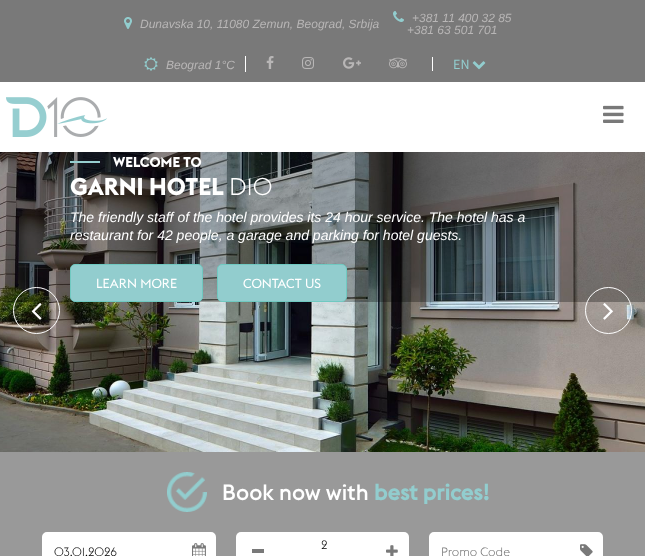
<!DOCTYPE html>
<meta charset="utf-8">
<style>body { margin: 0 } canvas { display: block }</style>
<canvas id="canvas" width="645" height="556"></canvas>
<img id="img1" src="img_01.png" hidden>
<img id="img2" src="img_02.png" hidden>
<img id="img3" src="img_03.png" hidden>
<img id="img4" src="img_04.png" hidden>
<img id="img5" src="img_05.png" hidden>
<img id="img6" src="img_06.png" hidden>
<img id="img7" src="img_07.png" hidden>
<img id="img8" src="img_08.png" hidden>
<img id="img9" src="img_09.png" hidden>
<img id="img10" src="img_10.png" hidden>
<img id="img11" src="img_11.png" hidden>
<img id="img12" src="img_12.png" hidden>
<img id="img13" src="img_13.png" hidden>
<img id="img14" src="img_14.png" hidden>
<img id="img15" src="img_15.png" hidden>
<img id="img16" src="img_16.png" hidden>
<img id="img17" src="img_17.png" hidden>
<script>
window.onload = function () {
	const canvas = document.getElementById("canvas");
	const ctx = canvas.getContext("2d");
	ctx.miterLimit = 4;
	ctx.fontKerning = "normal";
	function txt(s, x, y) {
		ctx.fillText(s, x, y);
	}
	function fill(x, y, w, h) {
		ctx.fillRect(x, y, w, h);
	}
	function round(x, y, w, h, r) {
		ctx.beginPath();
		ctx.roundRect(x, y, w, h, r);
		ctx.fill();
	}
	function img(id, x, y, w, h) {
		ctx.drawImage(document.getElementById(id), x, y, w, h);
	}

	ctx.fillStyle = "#FFFFFF";
	fill(0, 0, 645, 556);
	ctx.fillStyle = "#797979";
	fill(0, 0, 645, 82);
	img("img1", 124, 17, 8, 12);
	img("img2", 393, 11, 11, 11);
	img("img3", 144, 57, 14, 14);
	ctx.fillStyle = "#FFFFFF";
	fill(245, 56, 1, 16);
	img("img4", 266, 56, 8, 13);
	img("img5", 302, 57, 12, 12);
	img("img6", 343, 57, 18, 12);
	img("img7", 389, 57, 18, 12);
	fill(432, 57, 1, 14);
	img("img8", 472, 61, 14, 9);
	img("img9", 6, 97, 101, 40);
	img("img10", 603, 105, 21, 18);
	img("img11", 0, 152, 645, 300);
	ctx.fillStyle = "rgba(0, 0, 0, 0.3)";
	fill(0, 152, 645, 150);
	ctx.fillStyle = "#96CED0";
	fill(70, 161, 30, 2);
	ctx.fillStyle = "#92CDCE";
	ctx.beginPath();
	ctx.roundRect(70.5, 264.5, 132, 37, 4.5);
	ctx.fill();
	ctx.strokeStyle = "#70C9C1";
	ctx.stroke();
	ctx.beginPath();
	ctx.roundRect(217.5, 264.5, 129, 37, 4.5);
	ctx.fill();
	ctx.stroke();
	ctx.beginPath();
	ctx.arc(36.5, 310.5, 23, 0, Math.PI * 2);
	ctx.strokeStyle = "#FFFFFF";
	ctx.stroke();
	img("img12", 31, 303, 11, 17);
	ctx.beginPath();
	ctx.arc(608.5, 310.5, 23, 0, Math.PI * 2);
	ctx.stroke();
	img("img13", 603, 303, 10, 17);
	ctx.fillStyle = "#999999";
	fill(0, 452, 645, 104);
	img("img14", 167, 472, 40, 40);
	ctx.fillStyle = "#FFFFFF";
	round(236, 532, 173, 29, 5);
	ctx.fillStyle = "#797979";
	fill(252, 549, 12, 4);
	img("img15", 386, 545, 12, 11);
	ctx.fillStyle = "#FFFFFF";
	ctx.beginPath();
	ctx.roundRect(43, 533, 172, 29, 4);
	ctx.fill();
	ctx.lineWidth = 2;
	ctx.stroke();
	img("img16", 192, 543, 14, 13);
	ctx.beginPath();
	ctx.roundRect(430, 533, 172, 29, 4);
	ctx.fill();
	ctx.stroke();
	img("img17", 580, 544, 13, 12);
	ctx.font = "italic 12px Liberation Sans";
	ctx.fillStyle = "#B8B6B6";
	txt("Dunavska 10, 11080 Zemun, Beograd, Srbija", 140, 28);
	txt("+381 11 400 32 85", 412, 22);
	txt("+381 63 501 701", 407, 34);
	txt("Beograd 1°C", 166, 69);
	ctx.font = "14px Source Sans Pro";
	ctx.fillStyle = "#92CDCE";
	txt("EN", 453, 69);
	ctx.font = "bold 14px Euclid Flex";
	ctx.fillStyle = "#FFFFFF";
	txt("WELCOME TO", 113, 167);
	ctx.font = "bold 24px Euclid Flex";
	txt("GARNI HOTEL", 70, 195);
	ctx.font = "300 24px Euclid Flex";
	txt("D10", 229, 195);
	ctx.font = "italic 14px Liberation Sans";
	txt("The friendly staff of the hotel provides its 24 hour service. The hotel has a", 70, 222);
	txt("restaurant for 42 people, a garage and parking for hotel guests.", 70, 240);
	ctx.font = "13px Euclid Flex";
	txt("LEARN MORE", 96, 288);
	txt("CONTACT US", 243, 288);
	ctx.font = "500 22px Euclid Flex";
	txt("Book now with", 222, 500);
	ctx.font = "bold 22px 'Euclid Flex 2'";
	ctx.fillStyle = "#92CDCE";
	txt("best prices!", 374, 500);
	ctx.font = "300 12px Euclid Flex";
	ctx.fillStyle = "#000000";
	txt("2", 321, 549);
	txt("03.01.2026", 54, 556);
	ctx.fillStyle = "#757575";
	txt("Promo Code", 441, 556);
};
</script>
